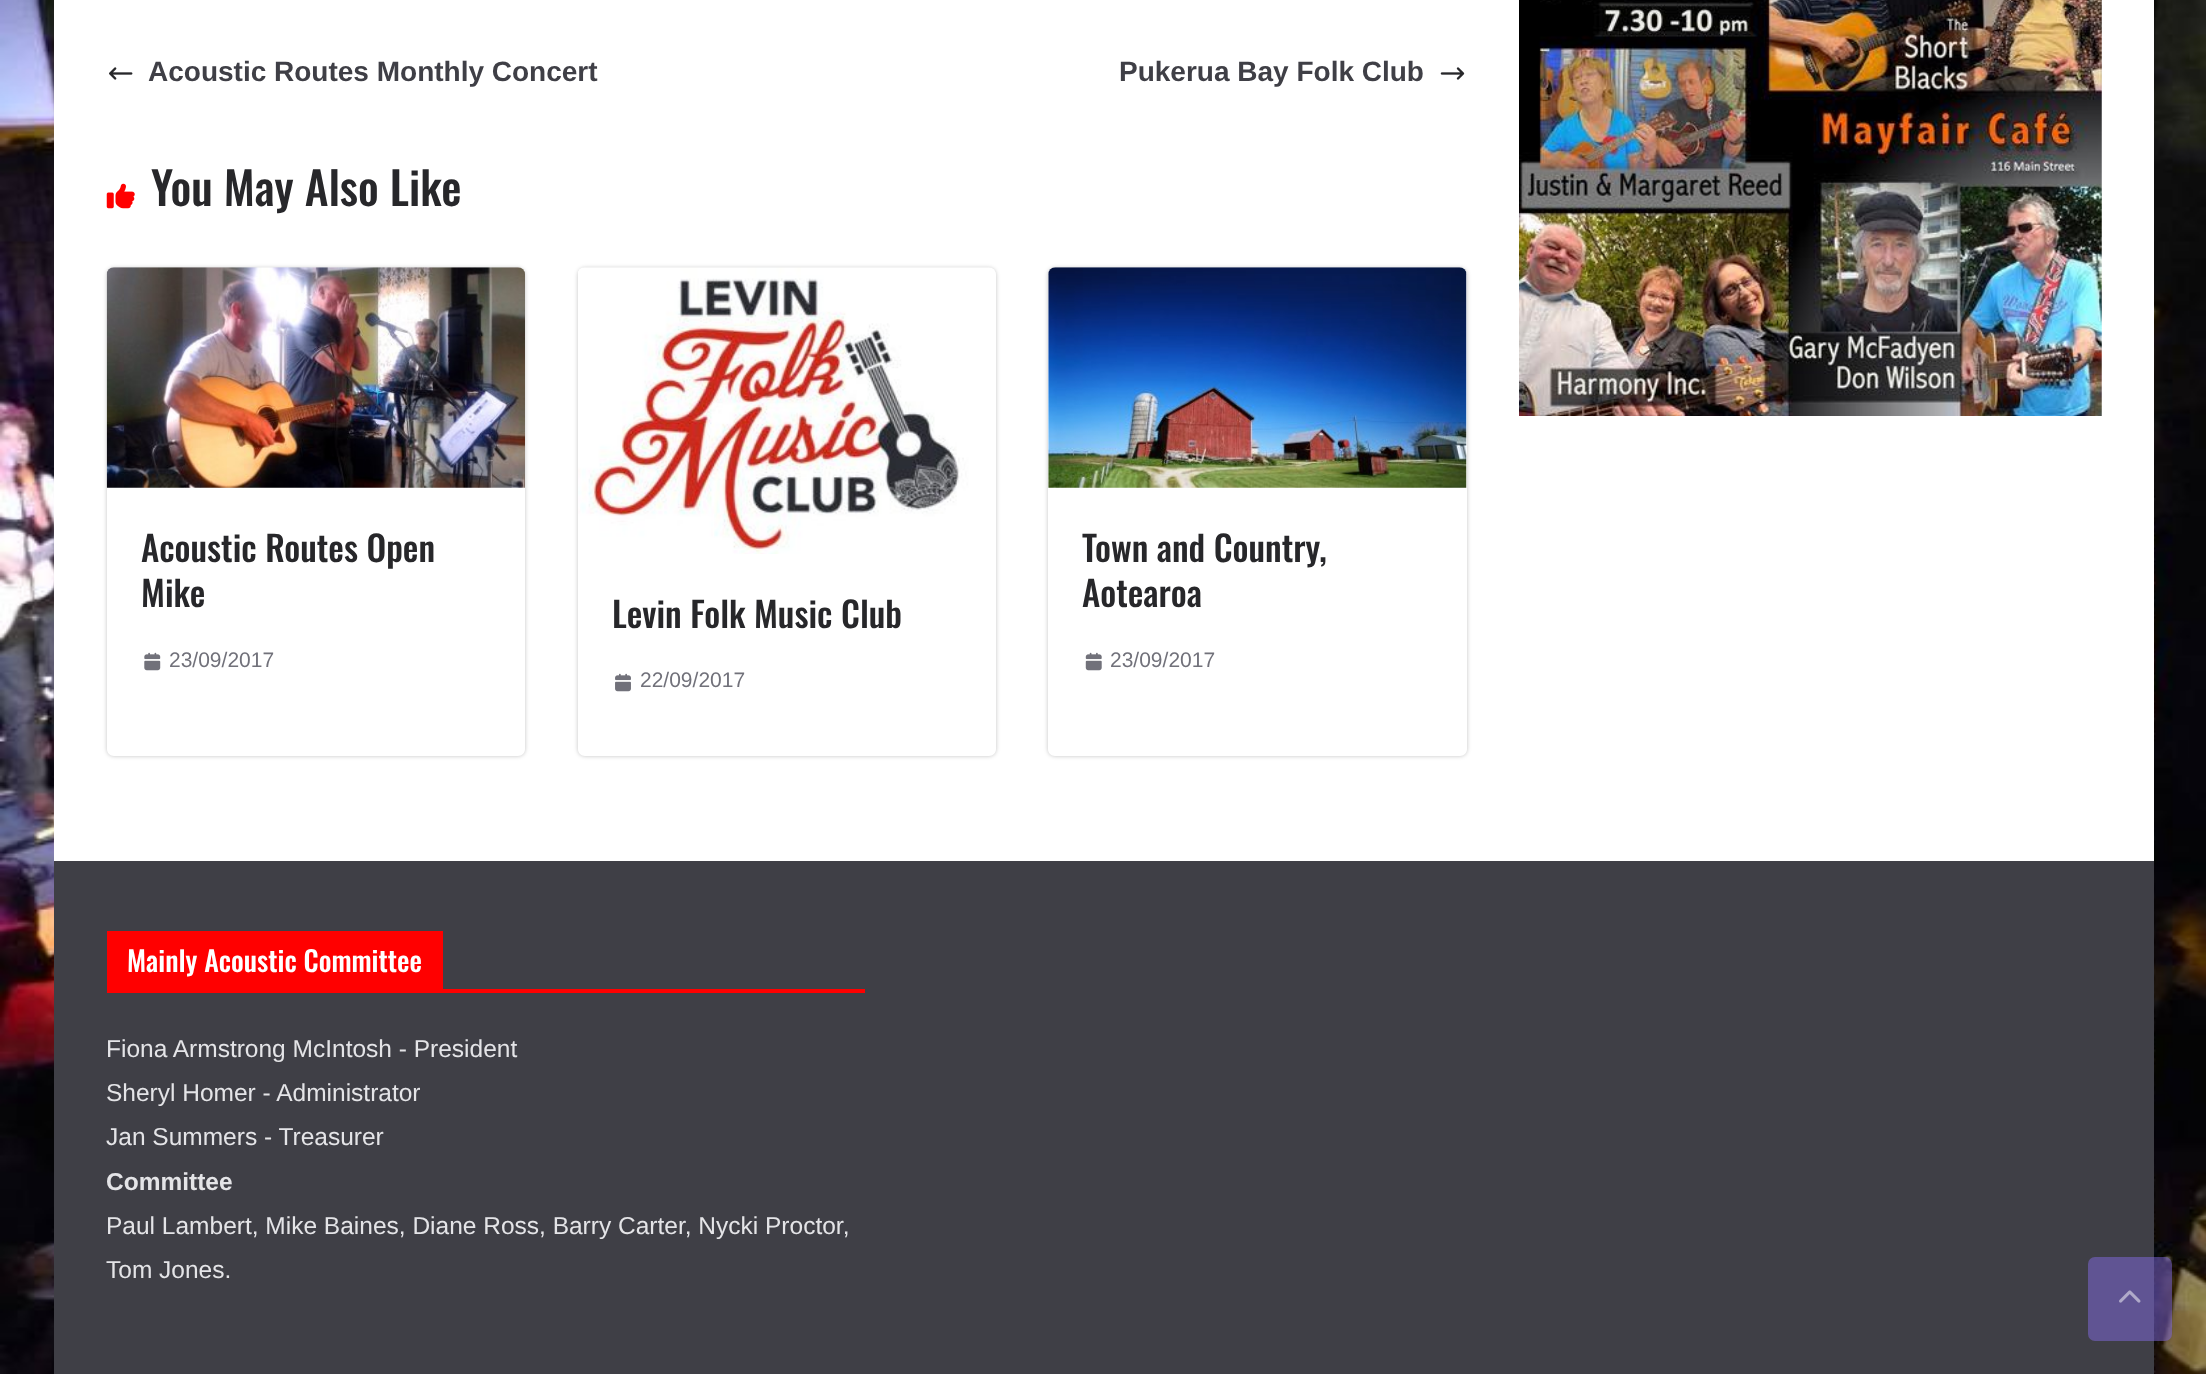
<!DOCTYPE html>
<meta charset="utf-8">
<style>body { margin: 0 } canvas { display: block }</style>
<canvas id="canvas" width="2206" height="1374"></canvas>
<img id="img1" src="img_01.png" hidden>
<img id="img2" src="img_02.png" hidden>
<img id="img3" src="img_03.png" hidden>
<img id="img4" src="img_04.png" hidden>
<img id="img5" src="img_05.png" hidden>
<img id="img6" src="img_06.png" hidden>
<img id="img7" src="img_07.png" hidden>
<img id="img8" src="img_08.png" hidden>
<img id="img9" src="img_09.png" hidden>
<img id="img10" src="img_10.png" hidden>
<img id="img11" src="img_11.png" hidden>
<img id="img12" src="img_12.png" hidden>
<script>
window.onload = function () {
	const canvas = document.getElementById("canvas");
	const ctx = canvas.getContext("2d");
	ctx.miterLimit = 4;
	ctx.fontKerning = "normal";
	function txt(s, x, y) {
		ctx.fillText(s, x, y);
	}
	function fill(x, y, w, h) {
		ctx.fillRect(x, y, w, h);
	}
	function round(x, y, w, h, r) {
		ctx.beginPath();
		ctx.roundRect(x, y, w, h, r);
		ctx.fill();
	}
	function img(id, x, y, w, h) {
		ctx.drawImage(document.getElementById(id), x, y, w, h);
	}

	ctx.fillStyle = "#FFFFFF";
	fill(0, 0, 2206, 1374);
	img("img1", 0, 0, 2206, 1374);
	fill(54, 0, 2100, 861);
	img("img2", 109, 67, 24, 13);
	img("img3", 1440, 67, 25, 13);
	img("img4", 106, 183, 29, 26);
	ctx.save();
	ctx.beginPath();
	ctx.moveTo(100, 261);
	ctx.lineTo(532, 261);
	ctx.lineTo(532, 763);
	ctx.lineTo(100, 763);
	ctx.closePath();
	ctx.moveTo(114, 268);
	ctx.lineTo(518, 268);
	ctx.bezierCurveTo(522, 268, 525, 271, 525, 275);
	ctx.lineTo(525, 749);
	ctx.bezierCurveTo(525, 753, 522, 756, 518, 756);
	ctx.lineTo(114, 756);
	ctx.bezierCurveTo(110, 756, 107, 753, 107, 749);
	ctx.lineTo(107, 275);
	ctx.bezierCurveTo(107, 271, 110, 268, 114, 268);
	ctx.closePath();
	ctx.clip("evenodd");
	ctx.fillStyle = "rgba(0, 0, 0, 0.24)";
	ctx.filter = "blur(2px)";
	ctx.beginPath();
	ctx.roundRect(107, 268, 418, 488, 7);
	ctx.fill();
	ctx.filter = "none";
	ctx.restore();
	img("img5", 106, 267, 419, 221);
	img("img6", 144, 652, 17, 19);
	ctx.save();
	ctx.beginPath();
	ctx.moveTo(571, 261);
	ctx.lineTo(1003, 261);
	ctx.lineTo(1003, 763);
	ctx.lineTo(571, 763);
	ctx.closePath();
	ctx.moveTo(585, 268);
	ctx.lineTo(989, 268);
	ctx.bezierCurveTo(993, 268, 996, 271, 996, 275);
	ctx.lineTo(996, 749);
	ctx.bezierCurveTo(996, 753, 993, 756, 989, 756);
	ctx.lineTo(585, 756);
	ctx.bezierCurveTo(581, 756, 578, 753, 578, 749);
	ctx.lineTo(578, 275);
	ctx.bezierCurveTo(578, 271, 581, 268, 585, 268);
	ctx.closePath();
	ctx.clip("evenodd");
	ctx.fillStyle = "rgba(0, 0, 0, 0.24)";
	ctx.filter = "blur(2px)";
	ctx.beginPath();
	ctx.roundRect(578, 268, 418, 488, 7);
	ctx.fill();
	ctx.filter = "none";
	ctx.restore();
	img("img7", 578, 267, 418, 287);
	img("img8", 615, 673, 16, 19);
	ctx.save();
	ctx.beginPath();
	ctx.moveTo(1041, 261);
	ctx.lineTo(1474, 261);
	ctx.lineTo(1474, 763);
	ctx.lineTo(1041, 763);
	ctx.closePath();
	ctx.moveTo(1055, 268);
	ctx.lineTo(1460, 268);
	ctx.bezierCurveTo(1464, 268, 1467, 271, 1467, 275);
	ctx.lineTo(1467, 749);
	ctx.bezierCurveTo(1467, 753, 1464, 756, 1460, 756);
	ctx.lineTo(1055, 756);
	ctx.bezierCurveTo(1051, 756, 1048, 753, 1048, 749);
	ctx.lineTo(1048, 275);
	ctx.bezierCurveTo(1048, 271, 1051, 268, 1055, 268);
	ctx.closePath();
	ctx.clip("evenodd");
	ctx.fillStyle = "rgba(0, 0, 0, 0.24)";
	ctx.filter = "blur(2px)";
	ctx.beginPath();
	ctx.roundRect(1048, 268, 419, 488, 7);
	ctx.fill();
	ctx.filter = "none";
	ctx.restore();
	img("img9", 1048, 267, 419, 221);
	img("img10", 1085, 652, 17, 19);
	img("img11", 1519, 0, 583, 416);
	ctx.fillStyle = "#3F3F46";
	fill(54, 861, 2100, 513);
	ctx.fillStyle = "#FF0000";
	fill(107, 989, 758, 4);
	fill(107, 931, 336, 58);
	ctx.fillStyle = "rgba(130, 105, 223, 0.5)";
	round(2088, 1257, 84, 84, 7);
	img("img12", 2119, 1290, 22, 13);
	ctx.font = "bold 28px Liberation Sans";
	ctx.fillStyle = "#3F3F46";
	txt("Acoustic Routes Monthly Concert", 148, 81);
	txt("Pukerua Bay Folk Club", 1119, 81);
	ctx.font = "500 45.5px Oswald";
	ctx.fillStyle = "#27272A";
	txt("You May Also Like", 151, 206);
	ctx.font = "500 35px Oswald";
	txt("Acoustic Routes Open", 141, 562);
	txt("Mike", 141, 607);
	ctx.font = "21px Liberation Sans";
	ctx.fillStyle = "#71717A";
	txt("23/09/2017", 169, 667);
	ctx.font = "500 35px Oswald";
	ctx.fillStyle = "#27272A";
	txt("Levin Folk Music Club", 612, 628);
	ctx.font = "21px Liberation Sans";
	ctx.fillStyle = "#71717A";
	txt("22/09/2017", 640, 687);
	ctx.font = "500 35px Oswald";
	ctx.fillStyle = "#27272A";
	txt("Town and Country,", 1082, 562);
	txt("Aotearoa", 1082, 607);
	ctx.font = "21px Liberation Sans";
	ctx.fillStyle = "#71717A";
	txt("23/09/2017", 1110, 667);
	ctx.font = "500 28px Oswald";
	ctx.fillStyle = "#FFFFFF";
	txt("Mainly Acoustic Committee", 127, 972);
	ctx.font = "24.5px Liberation Sans";
	ctx.fillStyle = "#E4E4E7";
	txt("Fiona Armstrong McIntosh - President", 106, 1057);
	txt("Sheryl Homer - Administrator", 106, 1101);
	txt("Jan Summers - Treasurer", 106, 1145);
	ctx.font = "bold 24.5px Liberation Sans";
	txt("Committee", 106, 1190);
	ctx.font = "24.5px Liberation Sans";
	txt("Paul Lambert, Mike Baines, Diane Ross, Barry Carter, Nycki Proctor,", 106, 1234);
	txt("Tom Jones.", 106, 1278);
};
</script>
